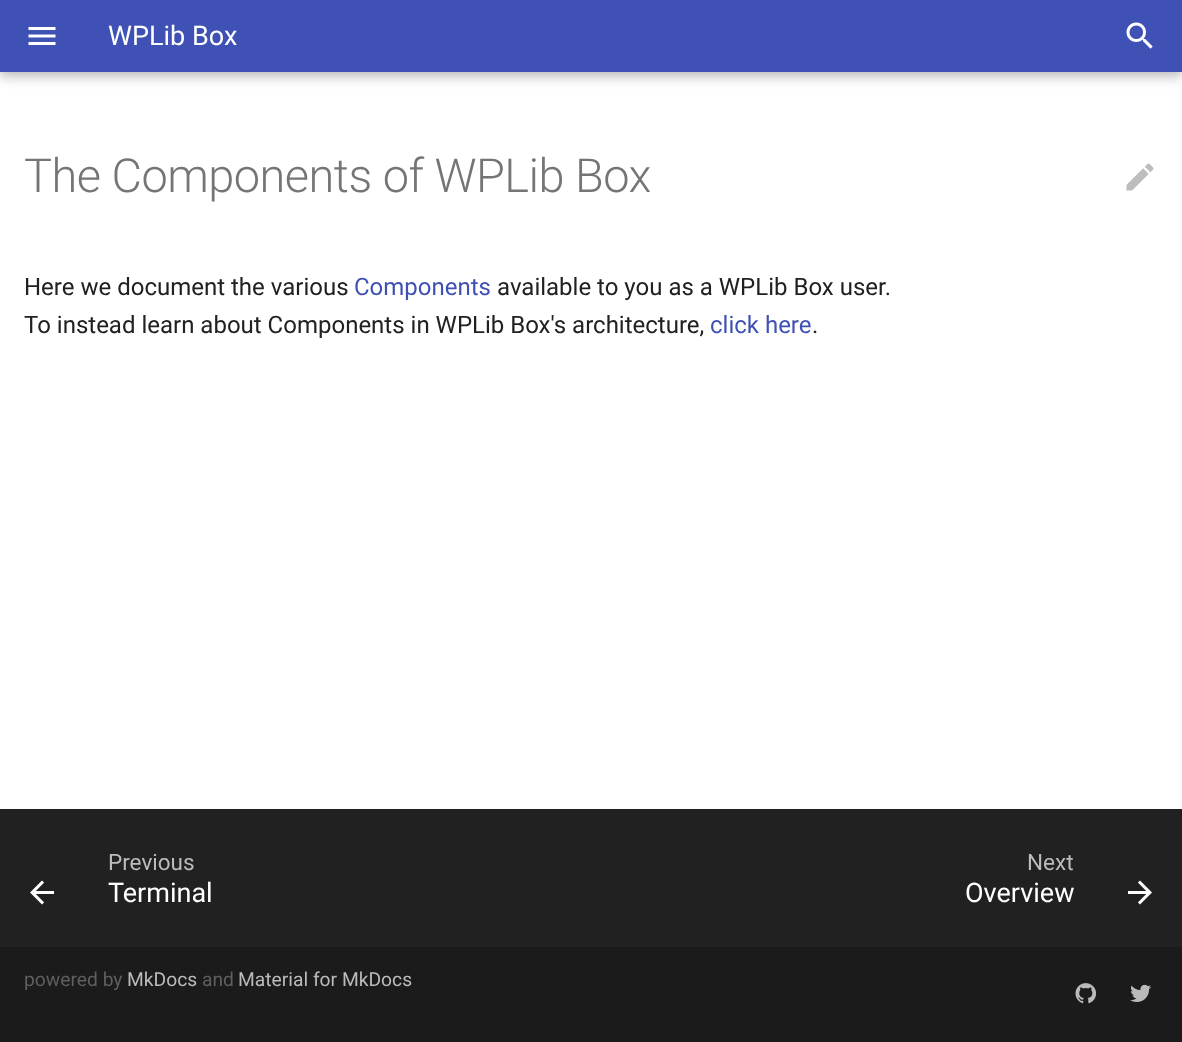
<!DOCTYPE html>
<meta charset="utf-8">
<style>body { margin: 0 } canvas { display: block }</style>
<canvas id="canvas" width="1182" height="1042"></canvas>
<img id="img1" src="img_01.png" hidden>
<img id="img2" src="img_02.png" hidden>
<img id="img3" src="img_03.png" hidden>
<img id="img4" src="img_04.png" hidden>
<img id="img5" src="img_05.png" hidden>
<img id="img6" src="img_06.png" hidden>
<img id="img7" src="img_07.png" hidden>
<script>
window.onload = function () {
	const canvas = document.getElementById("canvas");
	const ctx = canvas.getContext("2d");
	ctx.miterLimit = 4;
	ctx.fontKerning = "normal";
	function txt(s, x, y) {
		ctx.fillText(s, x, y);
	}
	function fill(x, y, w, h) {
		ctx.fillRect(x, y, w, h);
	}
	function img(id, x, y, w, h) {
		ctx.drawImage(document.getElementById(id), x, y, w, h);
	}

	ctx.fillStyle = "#FFFFFF";
	fill(0, 0, 1182, 1042);
	ctx.fillStyle = "rgba(0, 0, 0, 0.2)";
	ctx.filter = "blur(6px)";
	ctx.beginPath();
	ctx.rect(0, 6, 1182, 72);
	ctx.fill();
	ctx.filter = "none";
	ctx.fillStyle = "rgba(0, 0, 0, 0.1)";
	ctx.filter = "blur(3px)";
	ctx.beginPath();
	ctx.rect(0, 0, 1182, 72);
	ctx.fill();
	ctx.filter = "none";
	ctx.fillStyle = "#3F51B5";
	fill(0, 0, 1182, 72);
	img("img1", 28, 27, 28, 18);
	img("img2", 1126, 22, 27, 27);
	img("img3", 1126, 163, 28, 28);
	ctx.fillStyle = "#212121";
	fill(0, 809, 1182, 138);
	img("img4", 30, 880, 25, 25);
	img("img5", 1127, 880, 25, 25);
	ctx.fillStyle = "#1B1B1B";
	fill(0, 947, 1182, 95);
	img("img6", 1075, 983, 22, 21);
	img("img7", 1130, 984, 21, 18);
	ctx.font = "27px Roboto";
	ctx.fillStyle = "#FFFFFF";
	txt("WPLib Box", 108, 45);
	ctx.letterSpacing = "-0.5px";
	ctx.font = "300 46.9px Roboto";
	ctx.fillStyle = "#757575";
	txt("The Components of WPLib Box", 24, 192);
	ctx.letterSpacing = "0px";
	ctx.font = "24px Roboto";
	ctx.fillStyle = "#212121";
	txt("Here we document the various", 24, 295);
	ctx.fillStyle = "#3F51B5";
	txt("Components", 354, 295);
	ctx.fillStyle = "#212121";
	txt("available to you as a WPLib Box user.", 497, 295);
	txt("To instead learn about Components in WPLib Box's architecture,", 24, 333);
	ctx.fillStyle = "#3F51B5";
	txt("click here", 710, 333);
	ctx.fillStyle = "#212121";
	txt(".", 812, 333);
	ctx.font = "22.5px Roboto";
	ctx.fillStyle = "#BBBBBB";
	txt("Previous", 108, 870);
	ctx.font = "27px Roboto";
	ctx.fillStyle = "#FFFFFF";
	txt("Terminal", 108, 902);
	ctx.font = "22.5px Roboto";
	ctx.fillStyle = "#BBBBBB";
	txt("Next", 1027, 870);
	ctx.font = "27px Roboto";
	ctx.fillStyle = "#FFFFFF";
	txt("Overview", 965, 902);
	ctx.font = "19.25px Roboto";
	ctx.fillStyle = "#5F5F5F";
	txt("powered by", 24, 986);
	ctx.fillStyle = "#BBBBBB";
	txt("MkDocs", 127, 986);
	ctx.fillStyle = "#5F5F5F";
	txt("and", 202, 986);
	ctx.fillStyle = "#BBBBBB";
	txt("Material for MkDocs", 238, 986);
};
</script>
